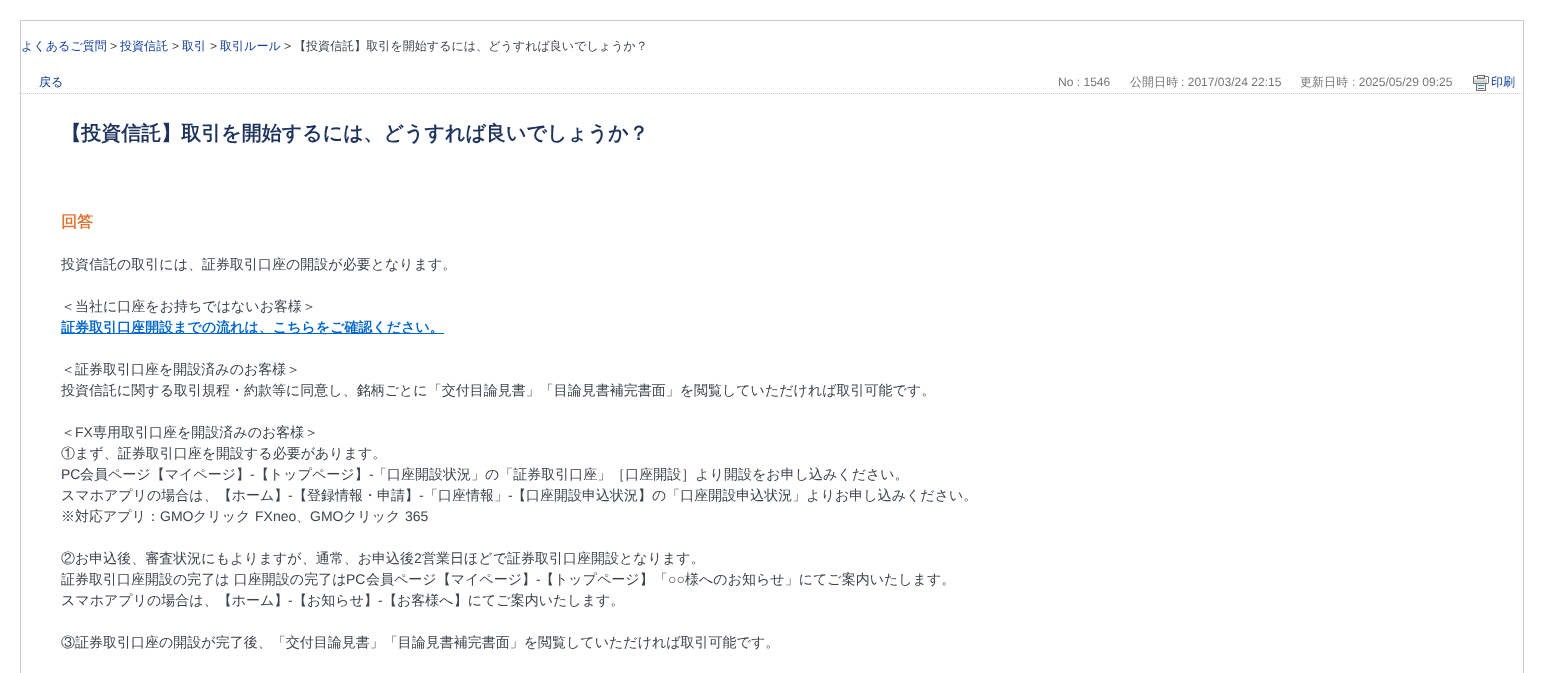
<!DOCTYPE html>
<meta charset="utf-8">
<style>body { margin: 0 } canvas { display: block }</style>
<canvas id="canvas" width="1544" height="673"></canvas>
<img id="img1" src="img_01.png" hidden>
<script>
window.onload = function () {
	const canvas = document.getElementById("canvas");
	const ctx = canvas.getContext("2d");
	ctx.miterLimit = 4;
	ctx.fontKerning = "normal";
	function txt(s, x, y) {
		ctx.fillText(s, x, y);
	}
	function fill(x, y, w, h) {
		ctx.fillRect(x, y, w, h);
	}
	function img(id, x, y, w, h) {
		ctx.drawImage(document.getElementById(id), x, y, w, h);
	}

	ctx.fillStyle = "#FFFFFF";
	fill(0, 0, 1544, 673);
	ctx.strokeStyle = "#CCCCCC";
	ctx.strokeRect(20.5, 20.5, 1503, 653);
	ctx.beginPath();
	ctx.moveTo(21, 93.5);
	ctx.lineTo(1523, 93.5);
	ctx.setLineDash([1, 1]);
	ctx.stroke();
	img("img1", 1473, 75, 16, 16);
	ctx.fillStyle = "#0066CC";
	fill(61, 333, 383, 1);
	ctx.font = "500 12.05px WenQuanYi Zen Hei";
	ctx.fillStyle = "#0F3D99";
	txt("よくあるご質問", 21, 50);
	ctx.font = "12.05px Liberation Sans";
	ctx.fillStyle = "#3D444C";
	txt(">", 110, 50);
	ctx.font = "500 12.05px WenQuanYi Zen Hei";
	ctx.fillStyle = "#0F3D99";
	txt("投資信託", 120, 50);
	ctx.font = "12.05px Liberation Sans";
	ctx.fillStyle = "#3D444C";
	txt(">", 172, 50);
	ctx.font = "500 12.05px WenQuanYi Zen Hei";
	ctx.fillStyle = "#0F3D99";
	txt("取引", 182, 50);
	ctx.font = "12.05px Liberation Sans";
	ctx.fillStyle = "#3D444C";
	txt(">", 210, 50);
	ctx.font = "500 12.05px WenQuanYi Zen Hei";
	ctx.fillStyle = "#0F3D99";
	txt("取引ルール", 220, 50);
	ctx.font = "12.05px Liberation Sans";
	ctx.fillStyle = "#3D444C";
	txt(">", 284, 50);
	ctx.font = "500 12.05px WenQuanYi Zen Hei";
	txt("【投資信託】取引を開始するには、どうすれば良いでしょうか？", 294, 50);
	ctx.fillStyle = "#0F3D99";
	txt("戻る", 39, 86);
	ctx.font = "12.05px Liberation Sans";
	ctx.fillStyle = "#777777";
	txt("No : 1546", 1058, 86);
	ctx.font = "500 12.05px WenQuanYi Zen Hei";
	txt("公開日時", 1130, 86);
	ctx.font = "12.05px Liberation Sans";
	txt(": 2017/03/24 22:15", 1181, 86);
	ctx.font = "500 12.05px WenQuanYi Zen Hei";
	txt("更新日時", 1300, 86);
	ctx.font = "12.05px Liberation Sans";
	txt(": 2025/05/29 09:25", 1352, 86);
	ctx.font = "500 12.05px WenQuanYi Zen Hei";
	ctx.fillStyle = "#0F3D99";
	txt("印刷", 1491, 86);
	ctx.font = "bold 20px WenQuanYi Zen Hei";
	ctx.fillStyle = "#1E335C";
	txt("【投資信託】取引を開始するには、どうすれば良いでしょうか？", 61, 140);
	ctx.font = "bold 16px WenQuanYi Zen Hei";
	ctx.fillStyle = "#DF7538";
	txt("回答", 61, 227);
	ctx.font = "500 14px WenQuanYi Zen Hei";
	ctx.fillStyle = "#3D444C";
	txt("投資信託の取引には、証券取引口座の開設が必要となります。", 61, 269);
	txt("＜当社に口座をお持ちではないお客様＞", 61, 311);
	ctx.font = "bold 14px WenQuanYi Zen Hei";
	ctx.fillStyle = "#0066CC";
	txt("証券取引口座開設までの流れは、こちらをご確認ください。", 61, 332);
	ctx.font = "500 14px WenQuanYi Zen Hei";
	ctx.fillStyle = "#3D444C";
	txt("＜証券取引口座を開設済みのお客様＞", 61, 374);
	txt("投資信託に関する取引規程・約款等に同意し、銘柄ごとに「交付目論見書」「目論見書補完書面」を閲覧していただければ取引可能です。", 61, 395);
	txt("＜", 61, 437);
	ctx.font = "14px Liberation Sans";
	txt("FX", 75, 437);
	ctx.font = "500 14px WenQuanYi Zen Hei";
	txt("専用取引口座を開設済みのお客様＞", 93, 437);
	txt("①まず、証券取引口座を開設する必要があります。", 61, 458);
	ctx.font = "14px Liberation Sans";
	txt("PC", 61, 479);
	ctx.font = "500 14px WenQuanYi Zen Hei";
	txt("会員ページ【マイページ】", 80, 479);
	ctx.font = "14px Liberation Sans";
	txt("-", 250, 479);
	ctx.font = "500 14px WenQuanYi Zen Hei";
	txt("【トップページ】", 255, 479);
	ctx.font = "14px Liberation Sans";
	txt("-", 369, 479);
	ctx.font = "500 14px WenQuanYi Zen Hei";
	txt("「口座開設状況」の「証券取引口座」［口座開設］より開設をお申し込みください。", 373, 479);
	txt("スマホアプリの場合は、【ホーム】", 61, 500);
	ctx.font = "14px Liberation Sans";
	txt("-", 288, 500);
	ctx.font = "500 14px WenQuanYi Zen Hei";
	txt("【登録情報・申請】", 293, 500);
	ctx.font = "14px Liberation Sans";
	txt("-", 419, 500);
	ctx.font = "500 14px WenQuanYi Zen Hei";
	txt("「口座情報」", 424, 500);
	ctx.font = "14px Liberation Sans";
	txt("-", 508, 500);
	ctx.font = "500 14px WenQuanYi Zen Hei";
	txt("【口座開設申込状況】の「口座開設申込状況」よりお申し込みください。", 512, 500);
	txt("※対応アプリ：", 61, 521);
	ctx.font = "14px Liberation Sans";
	txt("GMO", 160, 521);
	ctx.font = "500 14px WenQuanYi Zen Hei";
	txt("クリック", 193, 521);
	ctx.font = "14px Liberation Sans";
	txt("FXneo", 255, 521);
	ctx.font = "500 14px WenQuanYi Zen Hei";
	txt("、", 296, 521);
	ctx.font = "14px Liberation Sans";
	txt("GMO", 310, 521);
	ctx.font = "500 14px WenQuanYi Zen Hei";
	txt("クリック", 343, 521);
	ctx.font = "14px Liberation Sans";
	txt("365", 405, 521);
	ctx.font = "500 14px WenQuanYi Zen Hei";
	txt("②お申込後、審査状況にもよりますが、通常、お申込後", 61, 563);
	ctx.font = "14px Liberation Sans";
	txt("2", 414, 563);
	ctx.font = "500 14px WenQuanYi Zen Hei";
	txt("営業日ほどで証券取引口座開設となります。", 422, 563);
	txt("証券取引口座開設の完了は 口座開設の完了は", 61, 584);
	ctx.font = "14px Liberation Sans";
	txt("PC", 346, 584);
	ctx.font = "500 14px WenQuanYi Zen Hei";
	txt("会員ページ【マイページ】", 366, 584);
	ctx.font = "14px Liberation Sans";
	txt("-", 536, 584);
	ctx.font = "500 14px WenQuanYi Zen Hei";
	txt("【トップページ】「", 540, 584);
	ctx.font = "14px Liberation Sans";
	txt("○○", 668, 584);
	ctx.font = "500 14px WenQuanYi Zen Hei";
	txt("様へのお知らせ」にてご案内いたします。", 685, 584);
	txt("スマホアプリの場合は、【ホーム】", 61, 605);
	ctx.font = "14px Liberation Sans";
	txt("-", 288, 605);
	ctx.font = "500 14px WenQuanYi Zen Hei";
	txt("【お知らせ】", 293, 605);
	ctx.font = "14px Liberation Sans";
	txt("-", 378, 605);
	ctx.font = "500 14px WenQuanYi Zen Hei";
	txt("【お客様へ】にてご案内いたします。", 383, 605);
	txt("③証券取引口座の開設が完了後、「交付目論見書」「目論見書補完書面」を閲覧していただければ取引可能です。", 61, 647);
};
</script>
